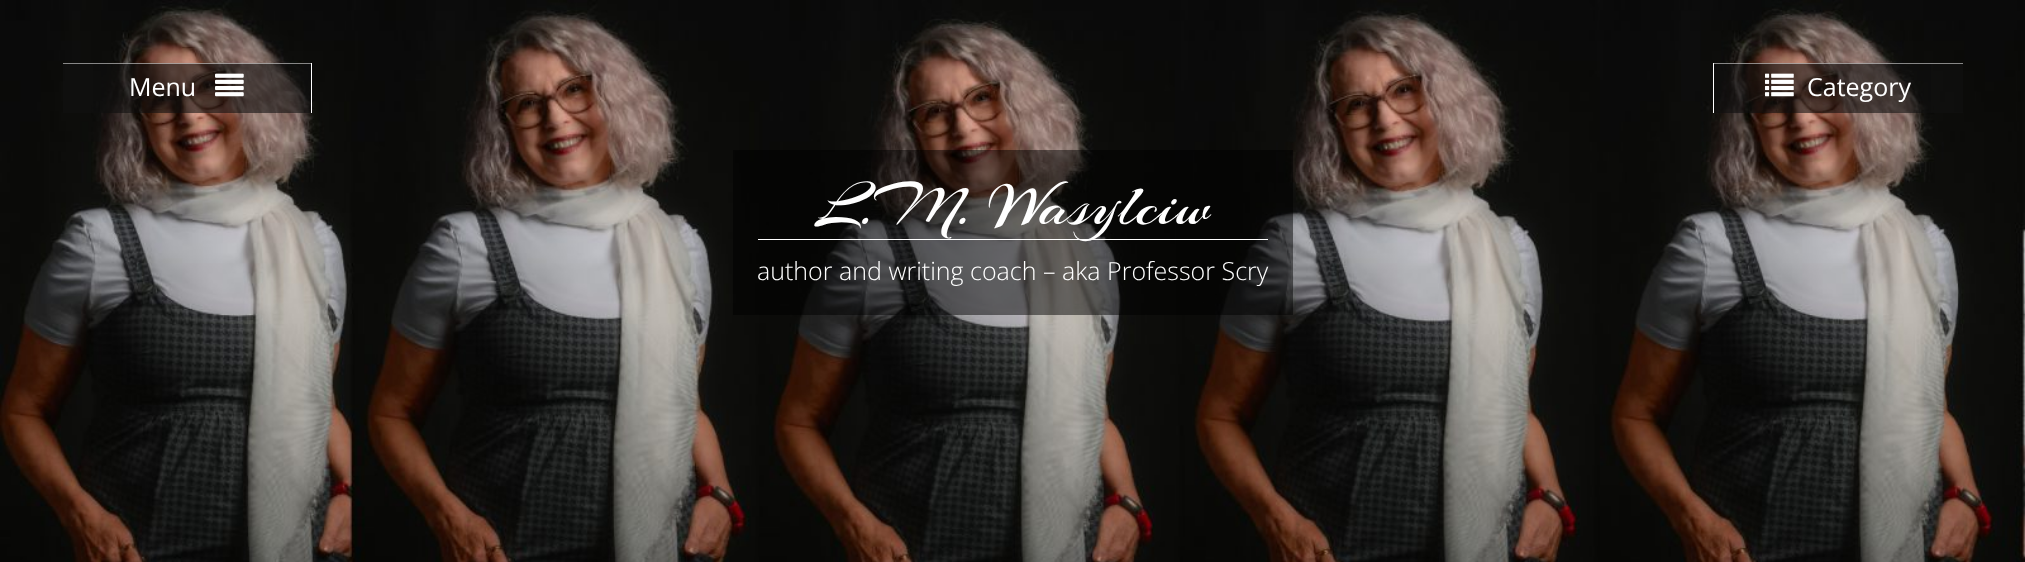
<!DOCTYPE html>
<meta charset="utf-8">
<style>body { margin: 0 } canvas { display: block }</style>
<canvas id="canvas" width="2025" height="562"></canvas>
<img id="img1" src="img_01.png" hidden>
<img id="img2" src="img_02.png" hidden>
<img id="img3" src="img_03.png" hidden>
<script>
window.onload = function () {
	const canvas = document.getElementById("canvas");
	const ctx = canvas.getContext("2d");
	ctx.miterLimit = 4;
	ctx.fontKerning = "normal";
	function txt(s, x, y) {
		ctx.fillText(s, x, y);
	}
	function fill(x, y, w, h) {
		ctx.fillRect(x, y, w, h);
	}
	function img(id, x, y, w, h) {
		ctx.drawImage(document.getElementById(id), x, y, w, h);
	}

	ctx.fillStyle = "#FFFFFF";
	fill(0, 0, 2025, 562);
	img("img1", 0, 0, 2025, 562);
	ctx.fillStyle = "rgba(0, 0, 0, 0.19)";
	fill(93, 63, 220, 50);
	ctx.fillStyle = "#FFFFFF";
	fill(311, 63, 1, 50);
	ctx.fillStyle = "rgba(19, 18, 18, 0.49)";
	fill(63, 63, 248, 50);
	ctx.fillStyle = "rgba(255, 255, 255, 0.5)";
	fill(63, 63, 248, 1);
	img("img2", 215, 73, 29, 24);
	ctx.fillStyle = "rgba(0, 0, 0, 0.19)";
	fill(1714, 63, 217, 50);
	ctx.fillStyle = "#FFFFFF";
	fill(1713, 63, 1, 50);
	ctx.fillStyle = "rgba(19, 18, 18, 0.49)";
	fill(1714, 63, 249, 50);
	ctx.fillStyle = "rgba(255, 255, 255, 0.5)";
	fill(1714, 63, 249, 1);
	img("img3", 1765, 73, 29, 24);
	ctx.fillStyle = "rgba(0, 0, 0, 0.48)";
	fill(733, 150, 560, 165);
	ctx.fillStyle = "#FFFFFF";
	fill(758, 239, 510, 1);
	ctx.font = "25px Open Sans";
	txt("Menu", 129, 96);
	txt("Category", 1807, 96);
	ctx.font = "63.75px Arizonia";
	txt("L.M. Wasylciw", 816, 224);
	ctx.font = "300 25px Open Sans";
	txt("author and writing coach – aka Professor Scry", 757, 280);
};
</script>
